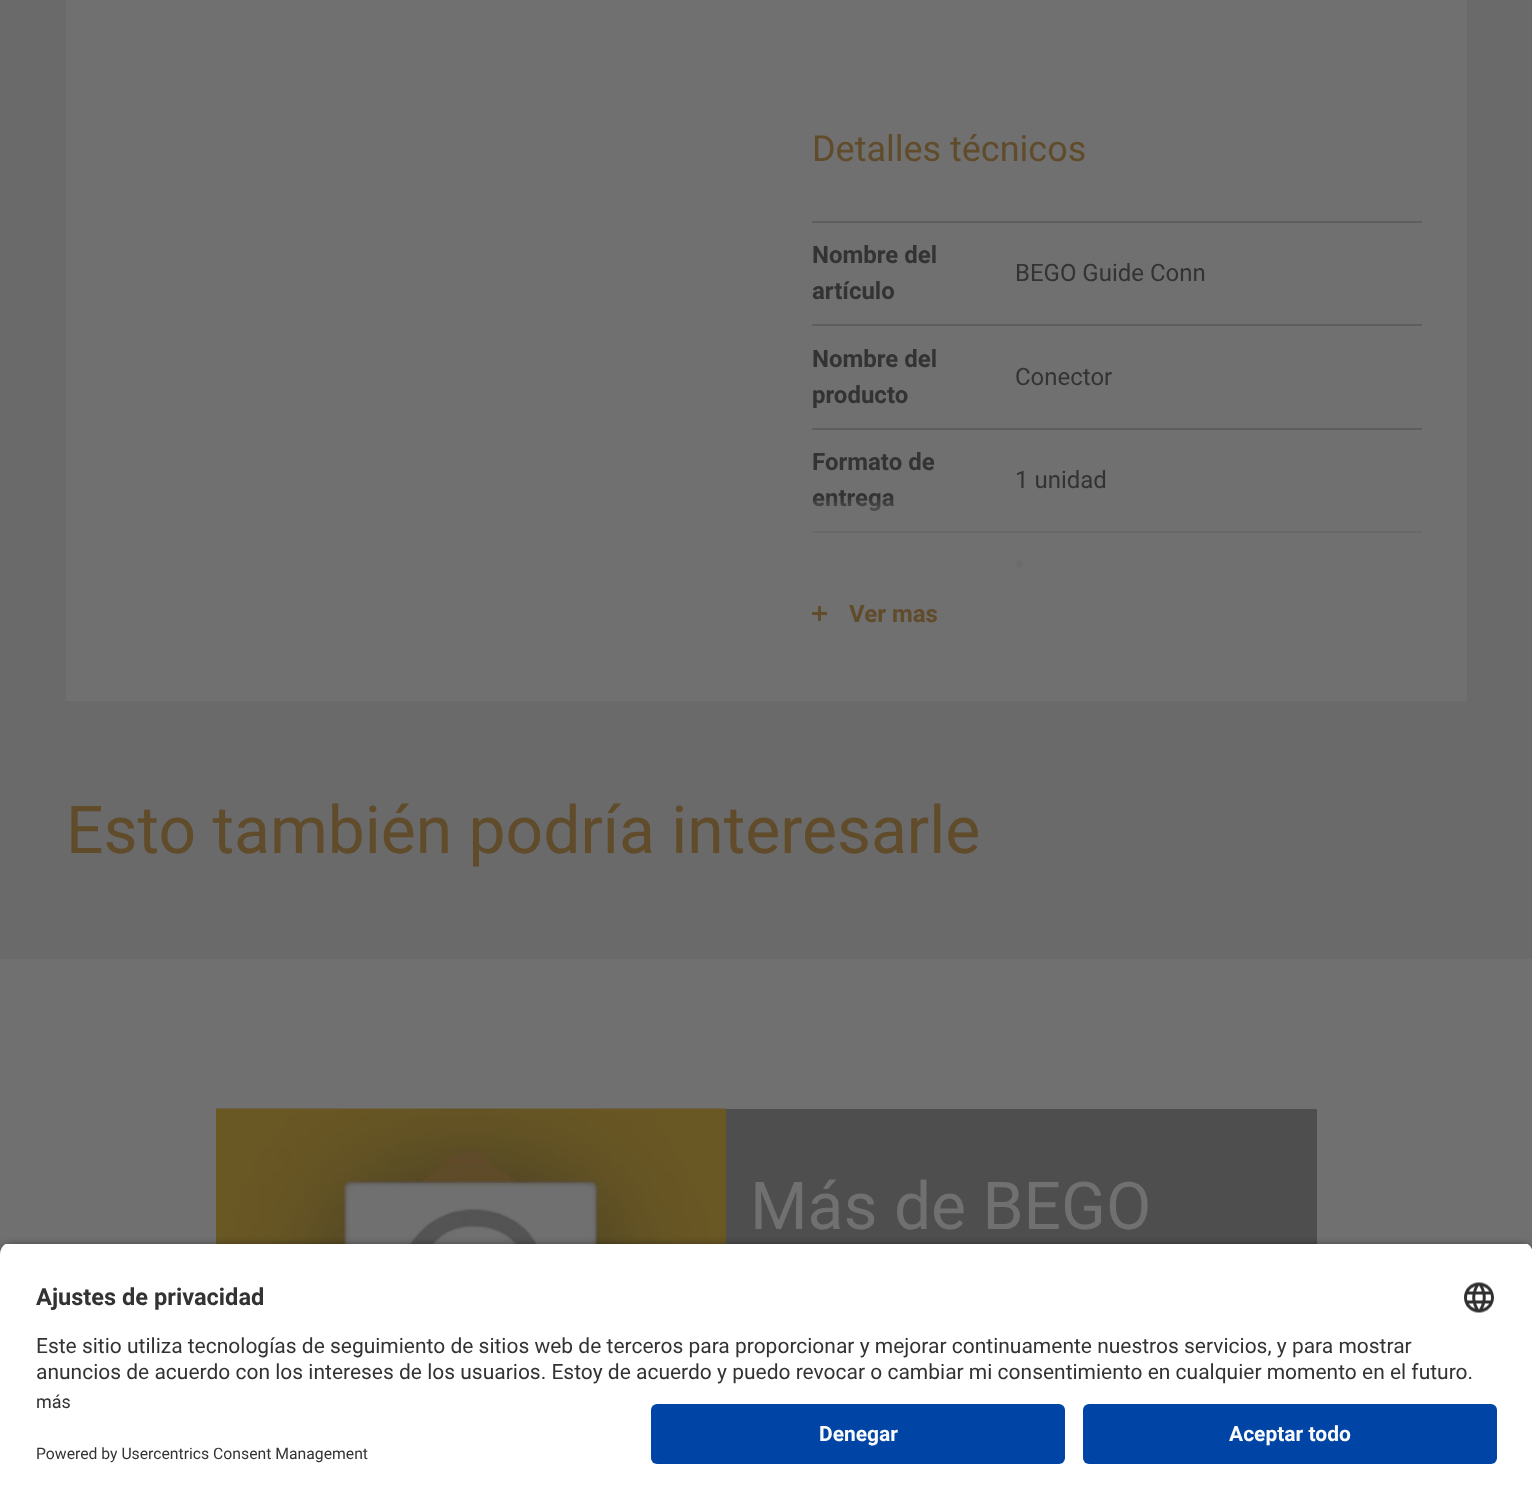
<!DOCTYPE html>
<meta charset="utf-8">
<style>body { margin: 0 } canvas { display: block }</style>
<canvas id="canvas" width="1532" height="1499"></canvas>
<img id="img1" src="img_01.png" hidden>
<img id="img2" src="img_02.png" hidden>
<script>
window.onload = function () {
	const canvas = document.getElementById("canvas");
	const ctx = canvas.getContext("2d");
	ctx.miterLimit = 4;
	ctx.fontKerning = "normal";
	function txt(s, x, y) {
		ctx.fillText(s, x, y);
	}
	function fill(x, y, w, h) {
		ctx.fillRect(x, y, w, h);
	}
	function round(x, y, w, h, r) {
		ctx.beginPath();
		ctx.roundRect(x, y, w, h, r);
		ctx.fill();
	}
	function img(id, x, y, w, h) {
		ctx.drawImage(document.getElementById(id), x, y, w, h);
	}
	let gradient;

	ctx.fillStyle = "#6A6A6A";
	fill(0, 0, 1532, 1499);
	ctx.fillStyle = "#707070";
	fill(66, 0, 1401, 701);
	ctx.fillStyle = "#5E5E5E";
	fill(812, 221, 610, 2);
	fill(812, 324, 610, 2);
	fill(812, 428, 610, 2);
	fill(812, 531, 610, 2);
	ctx.fillStyle = "#333333";
	round(1016, 561, 7, 8, 3.5);
	ctx.fillStyle = "#604B2A";
	fill(818, 606, 3, 15);
	fill(812, 612, 15, 3);
	ctx.fillStyle = "#707070";
	fill(0, 959, 1532, 295);
	img("img1", 216, 1108, 510, 136);
	ctx.fillStyle = "#4E4E4E";
	fill(726, 1109, 591, 135);
	ctx.fillStyle = "rgba(0, 0, 0, 0.8)";
	ctx.filter = "blur(5px)";
	ctx.beginPath();
	ctx.roundRect(0, 1247, 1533, 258, 12);
	ctx.fill();
	ctx.filter = "none";
	ctx.save();
	ctx.beginPath();
	ctx.moveTo(12, 1242);
	ctx.lineTo(1521, 1242);
	ctx.bezierCurveTo(1527.5, 1242, 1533, 1247.5, 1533, 1254);
	ctx.lineTo(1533, 1392);
	ctx.lineTo(0, 1392);
	ctx.lineTo(0, 1254);
	ctx.bezierCurveTo(0, 1247.5, 5.5, 1242, 12, 1242);
	ctx.closePath();
	ctx.clip();
	ctx.fillStyle = "#FFFFFF";
	fill(0, 1244, 1532, 148);
	ctx.restore();
	img("img2", 1464, 1282, 30, 31);
	ctx.fillStyle = "#FFFFFF";
	fill(0, 1392, 1532, 107);
	ctx.fillStyle = "#0045A5";
	round(651, 1404, 414, 60, 6);
	round(1083, 1404, 414, 60, 6);
	ctx.font = "36px Roboto";
	ctx.fillStyle = "#604B2A";
	txt("Detalles técnicos", 812, 161);
	ctx.font = "bold 24px Roboto";
	ctx.fillStyle = "#333333";
	txt("Nombre del", 812, 263);
	txt("artículo", 812, 299);
	ctx.font = "24px Roboto";
	txt("BEGO Guide Conn", 1015, 281);
	ctx.font = "bold 24px Roboto";
	txt("Nombre del", 812, 367);
	txt("producto", 812, 403);
	ctx.font = "24px Roboto";
	txt("Conector", 1015, 385);
	ctx.font = "bold 24px Roboto";
	txt("Formato de", 812, 470);
	txt("entrega", 812, 506);
	ctx.font = "24px Roboto";
	txt("1 unidad", 1015, 488);
	gradient = ctx.createLinearGradient(1117, 497, 1117, 572);
	gradient.addColorStop(0, "rgba(112, 112, 112, 0)");
	gradient.addColorStop(0.15, "rgba(112, 112, 112, 0.4)");
	gradient.addColorStop(1, "#707070");
	ctx.fillStyle = gradient;
	fill(812, 498, 610, 71);
	ctx.font = "bold 24px Roboto";
	ctx.fillStyle = "#604B2A";
	txt("Ver mas", 849, 622);
	ctx.font = "66px Roboto";
	txt("Esto también podría interesarle", 66, 853);
	ctx.fillStyle = "#707070";
	txt("Más de BEGO", 750, 1229);
	ctx.font = "bold 23.6px Roboto";
	ctx.fillStyle = "#333333";
	txt("Ajustes de privacidad", 36, 1305);
	ctx.font = "21px Roboto";
	txt("Este sitio utiliza tecnologías de seguimiento de sitios web de terceros para proporcionar y mejorar continuamente nuestros servicios, y para mostrar", 36, 1353);
	txt("anuncios de acuerdo con los intereses de los usuarios. Estoy de acuerdo y puedo revocar o cambiar mi consentimiento en cualquier momento en el futuro.", 36, 1379);
	ctx.font = "18px Roboto";
	txt("más", 36, 1408);
	ctx.font = "15.75px Roboto";
	txt("Powered by Usercentrics Consent Management", 36, 1459);
	ctx.font = "bold 21px Roboto";
	ctx.fillStyle = "#FAFAFA";
	txt("Denegar", 819, 1441);
	txt("Aceptar todo", 1229, 1441);
};
</script>
